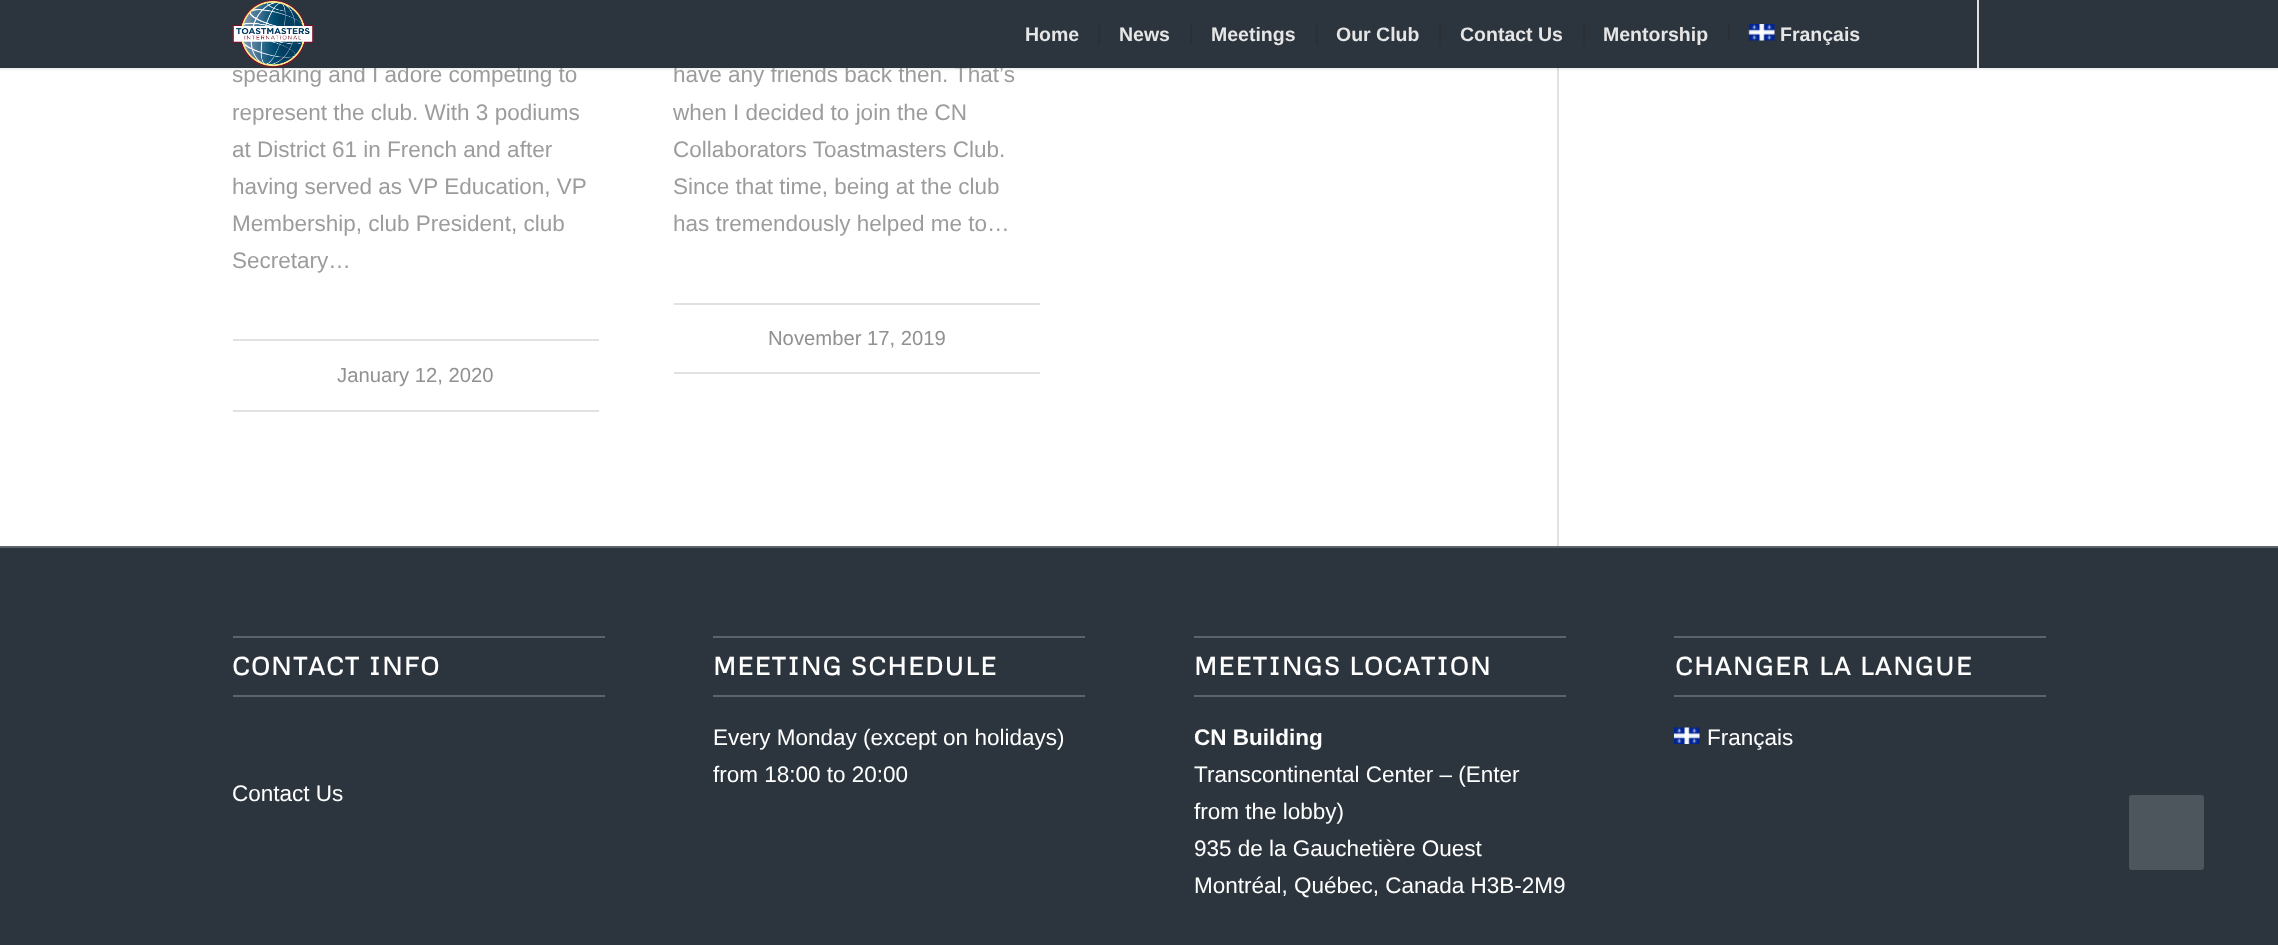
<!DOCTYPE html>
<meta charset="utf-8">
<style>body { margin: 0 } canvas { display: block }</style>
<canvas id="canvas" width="2278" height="945"></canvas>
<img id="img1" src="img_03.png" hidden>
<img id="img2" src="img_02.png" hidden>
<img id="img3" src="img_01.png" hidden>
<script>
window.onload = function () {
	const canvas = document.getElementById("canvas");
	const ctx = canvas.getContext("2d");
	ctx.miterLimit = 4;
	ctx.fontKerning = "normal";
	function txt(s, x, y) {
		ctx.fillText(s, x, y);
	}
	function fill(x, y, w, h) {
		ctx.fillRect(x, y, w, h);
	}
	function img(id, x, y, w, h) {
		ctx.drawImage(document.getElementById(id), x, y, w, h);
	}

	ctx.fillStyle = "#2C353D";
	fill(0, 0, 2278, 945);
	ctx.fillStyle = "#FFFFFF";
	fill(0, 68, 2278, 478);
	ctx.fillStyle = "#E1E1E1";
	fill(1557, 68, 2, 478);
	ctx.fillStyle = "rgba(0, 0, 0, 0.1)";
	ctx.filter = "blur(1.5px)";
	ctx.beginPath();
	ctx.rect(-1, -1, 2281, 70);
	ctx.fill();
	ctx.filter = "none";
	ctx.fillStyle = "#E1E1E1";
	fill(233, 339, 366, 2);
	fill(233, 410, 366, 2);
	fill(674, 303, 366, 2);
	fill(674, 372, 366, 2);
	ctx.fillStyle = "#5B646B";
	fill(0, 546, 2278, 2);
	fill(233, 636, 372, 2);
	fill(233, 695, 372, 2);
	fill(713, 636, 372, 2);
	fill(713, 695, 372, 2);
	fill(1194, 636, 372, 2);
	fill(1194, 695, 372, 2);
	fill(1674, 636, 372, 2);
	fill(1674, 695, 372, 2);
	img("img1", 1674, 727, 26, 17);
	ctx.fillStyle = "#4D565D";
	ctx.beginPath();
	ctx.roundRect(2130, 796, 73, 73, 2);
	ctx.fill();
	ctx.strokeStyle = "#4D565D";
	ctx.lineWidth = 2;
	ctx.stroke();
	ctx.save();
	ctx.beginPath();
	ctx.rect(233, 0, 366, 279);
	ctx.clip();
	ctx.font = "22.5px Liberation Sans";
	ctx.fillStyle = "#9C9C9C";
	txt("speaking and I adore competing to", 232, 82);
	ctx.restore();
	ctx.font = "22.5px Liberation Sans";
	ctx.fillStyle = "#9C9C9C";
	txt("represent the club. With 3 podiums", 232, 120);
	ctx.save();
	ctx.beginPath();
	ctx.rect(233, 0, 366, 279);
	ctx.clip();
	txt("at District 61 in French and after", 232, 157);
	ctx.restore();
	txt("having served as VP Education, VP", 232, 194);
	txt("Membership, club President, club", 232, 231);
	txt("Secretary…", 232, 268);
	ctx.font = "20.25px Liberation Sans";
	ctx.fillStyle = "#919191";
	txt("January 12, 2020", 337, 382);
	ctx.font = "22.5px Liberation Sans";
	ctx.fillStyle = "#9C9C9C";
	txt("have any friends back then. That’s", 673, 82);
	ctx.fillStyle = "#2C353D";
	fill(0, 0, 2278, 68);
	ctx.font = "bold 19.5px Liberation Sans";
	ctx.fillStyle = "#E6E6E6";
	txt("Français", 1780, 41);
	img("img2", 1748, 24, 27, 17);
	ctx.fillStyle = "#2C3033";
	fill(1728, 24, 2, 17);
	ctx.fillStyle = "#E6E6E6";
	txt("Mentorship", 1603, 41);
	ctx.fillStyle = "#2C3033";
	fill(1583, 23, 2, 22);
	ctx.fillStyle = "#E6E6E6";
	txt("Contact Us", 1460, 41);
	ctx.fillStyle = "#2C3033";
	fill(1439, 23, 2, 22);
	ctx.fillStyle = "#E6E6E6";
	txt("Our Club", 1336, 41);
	ctx.fillStyle = "#2C3033";
	fill(1316, 23, 2, 22);
	ctx.fillStyle = "#E6E6E6";
	txt("Meetings", 1211, 41);
	ctx.fillStyle = "#2C3033";
	fill(1190, 23, 2, 22);
	ctx.fillStyle = "#E6E6E6";
	txt("News", 1119, 41);
	ctx.fillStyle = "#2C3033";
	fill(1098, 23, 2, 22);
	ctx.fillStyle = "#E6E6E6";
	txt("Home", 1025, 41);
	ctx.fillStyle = "#E1E1E1";
	fill(1977, 0, 2, 68);
	img("img3", 232, 0, 82, 68);
	ctx.font = "22.5px Liberation Sans";
	ctx.fillStyle = "#9C9C9C";
	txt("when I decided to join the CN", 673, 120);
	txt("Collaborators Toastmasters Club.", 673, 157);
	txt("Since that time, being at the club", 673, 194);
	txt("has tremendously helped me to…", 673, 231);
	ctx.font = "20.25px Liberation Sans";
	ctx.fillStyle = "#919191";
	txt("November 17, 2019", 768, 345);
	ctx.letterSpacing = "1.5px";
	ctx.font = "bold 24.75px Metrophobic";
	ctx.fillStyle = "#FFFFFF";
	txt("CONTACT INFO", 232, 675);
	ctx.letterSpacing = "0px";
	ctx.font = "22.5px Liberation Sans";
	txt("Contact Us", 232, 801);
	ctx.letterSpacing = "1.5px";
	ctx.font = "bold 24.75px Metrophobic";
	txt("MEETING SCHEDULE", 713, 675);
	ctx.letterSpacing = "0px";
	ctx.font = "22.5px Liberation Sans";
	txt("Every Monday (except on holidays)", 713, 745);
	txt("from 18:00 to 20:00", 713, 782);
	ctx.letterSpacing = "1.5px";
	ctx.font = "bold 24.75px Metrophobic";
	txt("MEETINGS LOCATION", 1194, 675);
	ctx.letterSpacing = "0px";
	ctx.font = "bold 22.5px Liberation Sans";
	txt("CN Building", 1194, 745);
	ctx.font = "22.5px Liberation Sans";
	txt("Transcontinental Center – (Enter", 1194, 782);
	txt("from the lobby)", 1194, 819);
	txt("935 de la Gauchetière Ouest", 1194, 856);
	txt("Montréal, Québec, Canada H3B-2M9", 1194, 893);
	ctx.letterSpacing = "1.5px";
	ctx.font = "bold 24.75px Metrophobic";
	txt("CHANGER LA LANGUE", 1675, 675);
	ctx.letterSpacing = "0px";
	ctx.font = "22.5px Liberation Sans";
	txt("Français", 1707, 745);
};
</script>
